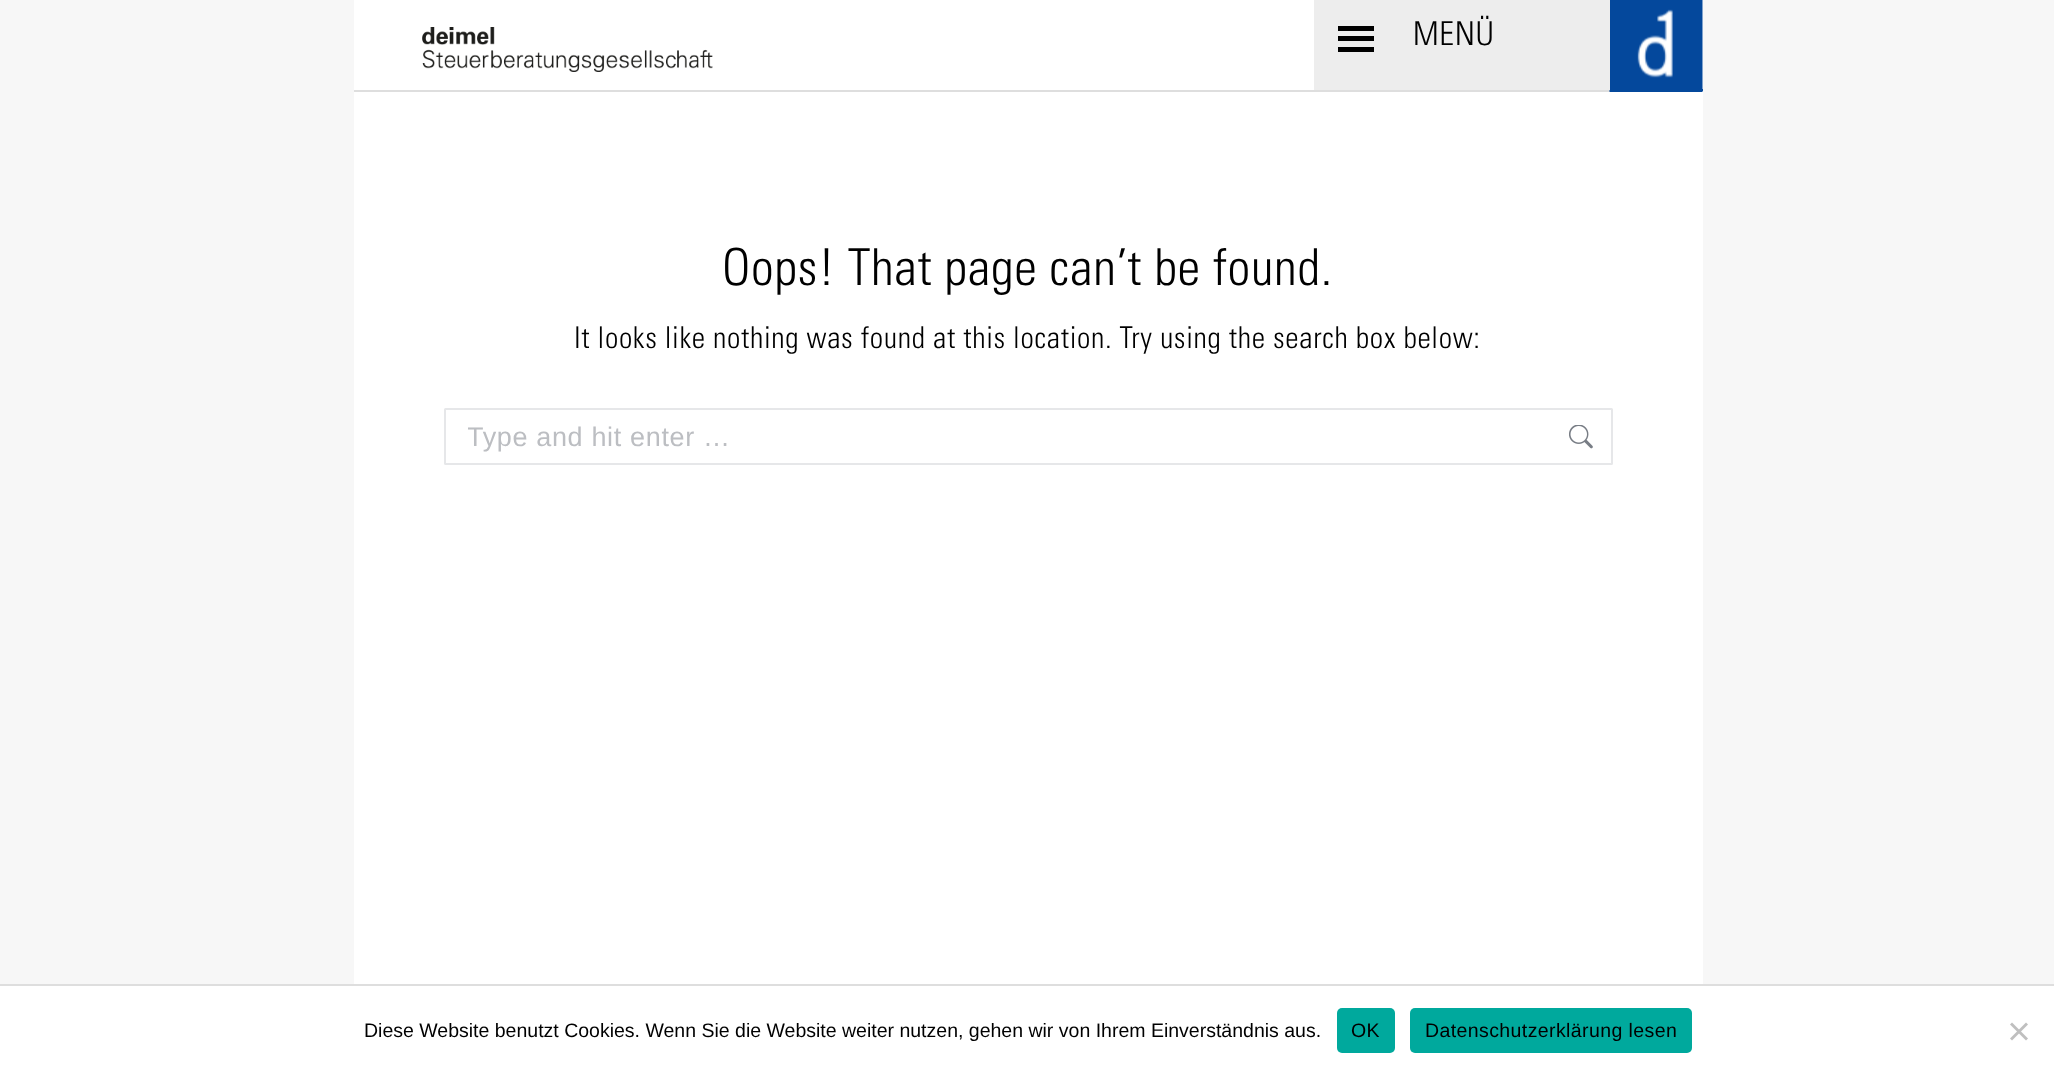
<!DOCTYPE html>
<meta charset="utf-8">
<style>body { margin: 0 } canvas { display: block }</style>
<canvas id="canvas" width="2054" height="1076"></canvas>
<img id="img1" src="img_01.png" hidden>
<img id="img2" src="img_02.png" hidden>
<img id="img3" src="img_03.png" hidden>
<script>
window.onload = function () {
	const canvas = document.getElementById("canvas");
	const ctx = canvas.getContext("2d");
	ctx.miterLimit = 4;
	ctx.fontKerning = "normal";
	function txt(s, x, y) {
		ctx.fillText(s, x, y);
	}
	function fill(x, y, w, h) {
		ctx.fillRect(x, y, w, h);
	}
	function round(x, y, w, h, r) {
		ctx.beginPath();
		ctx.roundRect(x, y, w, h, r);
		ctx.fill();
	}
	function img(id, x, y, w, h) {
		ctx.drawImage(document.getElementById(id), x, y, w, h);
	}

	ctx.fillStyle = "#F7F7F7";
	fill(0, 0, 2054, 1076);
	ctx.fillStyle = "#FFFFFF";
	fill(0, 986, 2054, 90);
	fill(354, 0, 1349, 984);
	ctx.fillStyle = "#04489C";
	fill(1702, 89, 1, 2);
	ctx.fillStyle = "#DEDEDE";
	fill(354, 90, 1256, 2);
	img("img1", 1609, 0, 94, 92);
	ctx.fillStyle = "#EDEDED";
	fill(1314, 0, 296, 90);
	ctx.fillStyle = "#000000";
	fill(1338, 26, 36, 5);
	fill(1338, 36, 36, 5);
	fill(1338, 47, 36, 5);
	img("img2", 422, 27, 291, 45);
	ctx.beginPath();
	ctx.roundRect(445, 409, 1167, 55, 0.5);
	ctx.strokeStyle = "#E6E7E9";
	ctx.lineWidth = 2;
	ctx.stroke();
	img("img3", 1569, 425, 24, 24);
	ctx.fillStyle = "#DEDEDE";
	fill(0, 984, 2054, 2);
	ctx.fillStyle = "#00A99D";
	round(1337, 1008, 58, 45, 5);
	round(1410, 1008, 282, 45, 5);
	ctx.fillStyle = "#BFBFBF";
	ctx.beginPath();
	ctx.moveTo(2026, 1022.5);
	ctx.lineTo(2028, 1024.5);
	ctx.lineTo(2012, 1040.5);
	ctx.lineTo(2010, 1038.5);
	ctx.closePath();
	ctx.fill();
	ctx.beginPath();
	ctx.moveTo(2010, 1024.5);
	ctx.lineTo(2012, 1022.5);
	ctx.lineTo(2028, 1038.5);
	ctx.lineTo(2026, 1040.5);
	ctx.closePath();
	ctx.fill();
	ctx.letterSpacing = "0.65px";
	ctx.font = "300 33px Univers";
	ctx.fillStyle = "#000000";
	txt("MENÜ", 1413, 45);
	ctx.font = "300 51px Univers";
	txt("Oops! That page can’t be found.", 722, 285);
	ctx.font = "300 30px Univers";
	txt("It looks like nothing was found at this location. Try using the search box below:", 574, 348);
	ctx.save();
	ctx.beginPath();
	ctx.rect(468, 422, 1098, 31);
	ctx.clip();
	ctx.font = "27px Liberation Sans";
	ctx.fillStyle = "#BCBEC2";
	txt("Type and hit enter …", 467, 446);
	ctx.restore();
	ctx.letterSpacing = "0px";
	ctx.font = "19.5px Liberation Sans";
	txt("Diese Website benutzt Cookies. Wenn Sie die Website weiter nutzen, gehen wir von Ihrem Einverständnis aus.", 364, 1037);
	ctx.letterSpacing = "0.4px";
	txt("OK", 1351, 1037);
	txt("Datenschutzerklärung lesen", 1425, 1037);
};
</script>
